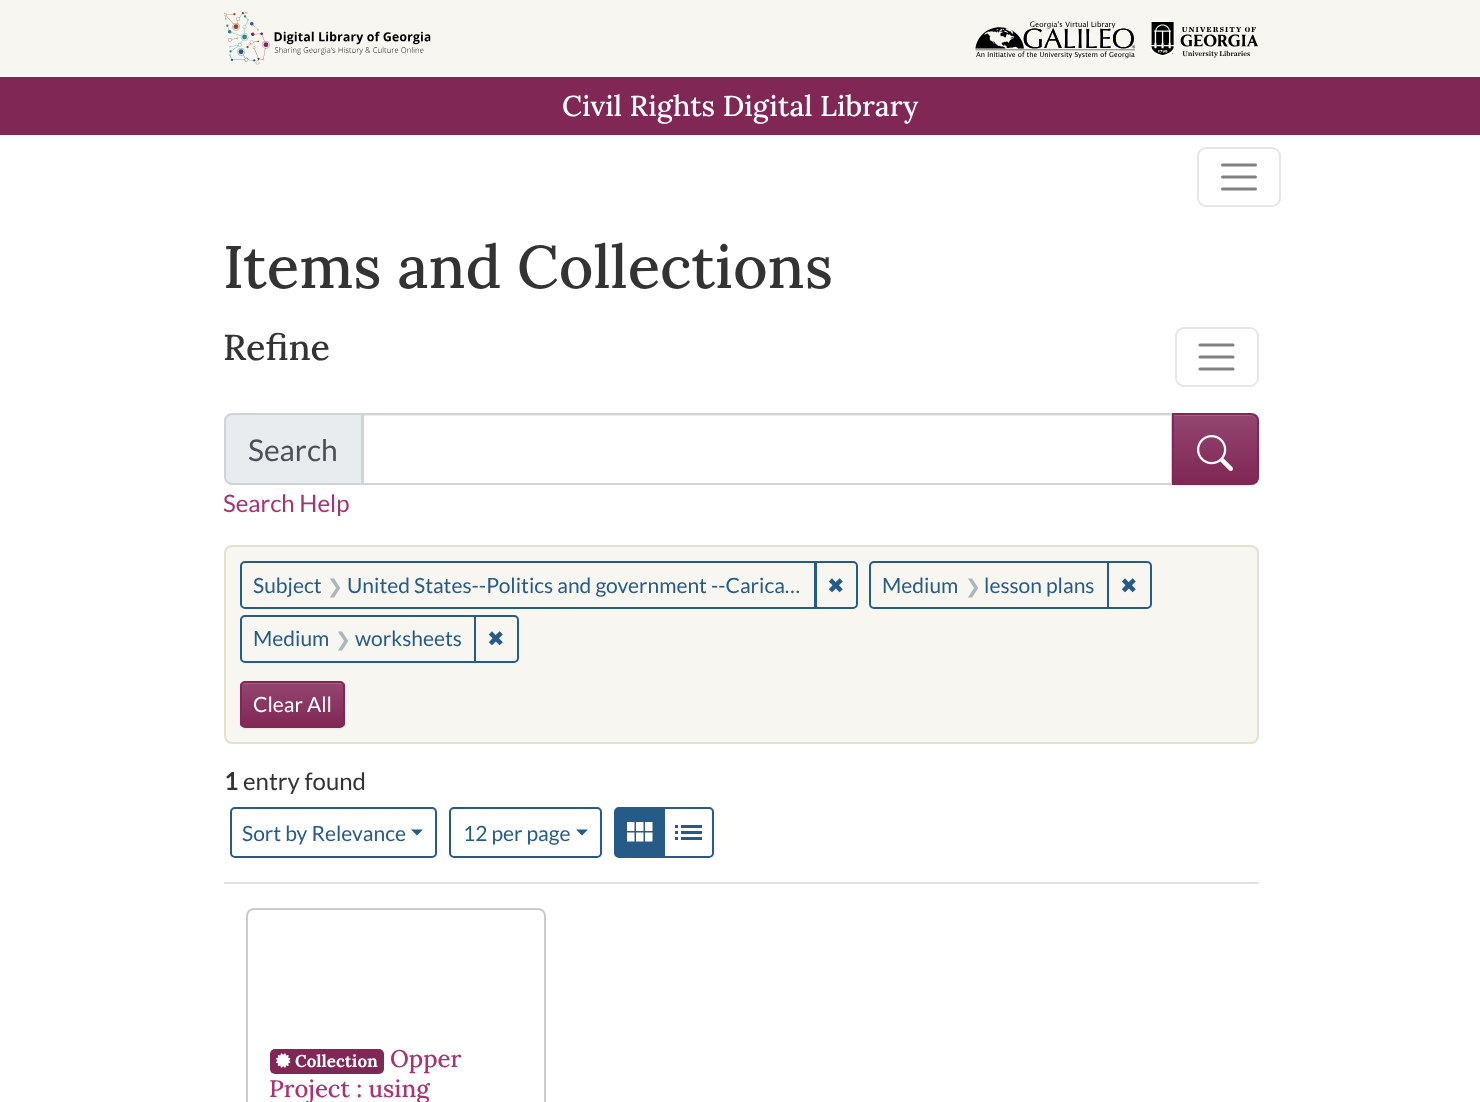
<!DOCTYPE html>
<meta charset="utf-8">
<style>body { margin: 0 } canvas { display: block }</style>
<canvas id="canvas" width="1480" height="1102"></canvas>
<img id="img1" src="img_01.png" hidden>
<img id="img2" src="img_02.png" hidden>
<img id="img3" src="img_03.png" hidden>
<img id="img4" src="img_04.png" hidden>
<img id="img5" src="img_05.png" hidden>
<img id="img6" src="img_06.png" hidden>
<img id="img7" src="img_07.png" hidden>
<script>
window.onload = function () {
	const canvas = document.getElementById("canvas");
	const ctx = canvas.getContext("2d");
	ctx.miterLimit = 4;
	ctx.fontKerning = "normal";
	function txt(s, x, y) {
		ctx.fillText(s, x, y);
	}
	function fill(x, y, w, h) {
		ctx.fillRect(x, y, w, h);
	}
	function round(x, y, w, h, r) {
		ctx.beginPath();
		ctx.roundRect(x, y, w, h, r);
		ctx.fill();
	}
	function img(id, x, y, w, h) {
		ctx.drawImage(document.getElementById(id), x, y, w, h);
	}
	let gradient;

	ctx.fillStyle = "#FFFFFF";
	fill(0, 0, 1480, 1102);
	ctx.fillStyle = "#F7F6F1";
	fill(0, 0, 1480, 77);
	img("img1", 224, 12, 207, 53);
	img("img2", 975, 21, 161, 38);
	img("img3", 1151, 21, 107, 37);
	ctx.fillStyle = "#802755";
	fill(0, 77, 1480, 58);
	ctx.beginPath();
	ctx.roundRect(1198, 148, 82, 58, 8);
	ctx.strokeStyle = "#E6E6E6";
	ctx.lineWidth = 2;
	ctx.stroke();
	ctx.beginPath();
	ctx.moveTo(1222.5, 165);
	ctx.lineTo(1255.5, 165);
	ctx.moveTo(1222.5, 177);
	ctx.lineTo(1255.5, 177);
	ctx.moveTo(1222.5, 189);
	ctx.lineTo(1255.5, 189);
	ctx.strokeStyle = "#808080";
	ctx.lineWidth = 3;
	ctx.lineCap = "round";
	ctx.stroke();
	ctx.beginPath();
	ctx.roundRect(1176, 328, 82, 58, 8);
	ctx.strokeStyle = "#E6E6E6";
	ctx.lineWidth = 2;
	ctx.stroke();
	ctx.beginPath();
	ctx.moveTo(1200, 345);
	ctx.lineTo(1233, 345);
	ctx.moveTo(1200, 357);
	ctx.lineTo(1233, 357);
	ctx.moveTo(1200, 369);
	ctx.lineTo(1233, 369);
	ctx.strokeStyle = "#808080";
	ctx.lineWidth = 3;
	ctx.stroke();
	ctx.fillStyle = "#E9ECEF";
	ctx.beginPath();
	ctx.roundRect(225, 414, 137, 70, [7, 0, 0, 7]);
	ctx.fill();
	ctx.strokeStyle = "#CED4DA";
	ctx.lineWidth = 2;
	ctx.stroke();
	ctx.fillStyle = "#ECECEC";
	fill(363, 415, 809, 1);
	ctx.strokeRect(363, 414, 809, 70);
	ctx.fillStyle = "rgba(0, 0, 0, 0.07)";
	ctx.filter = "blur(1px)";
	ctx.beginPath();
	ctx.roundRect(1172, 414, 87, 72, 8);
	ctx.fill();
	ctx.filter = "none";
	ctx.save();
	ctx.beginPath();
	ctx.roundRect(1172, 413, 87, 72, [0, 8, 8, 0]);
	ctx.clip();
	gradient = ctx.createLinearGradient(1215, 414, 1215, 483);
	gradient.addColorStop(0, "#93476F");
	gradient.addColorStop(1, "#802755");
	ctx.fillStyle = gradient;
	fill(1174, 414, 85, 69);
	ctx.restore();
	ctx.fillStyle = "#A36284";
	ctx.beginPath();
	ctx.moveTo(1173, 416);
	ctx.lineTo(1251, 416);
	ctx.bezierCurveTo(1254, 416, 1257, 418, 1257, 421);
	ctx.lineTo(1257, 420);
	ctx.bezierCurveTo(1257, 417, 1254, 414, 1251, 414);
	ctx.lineTo(1173, 414);
	ctx.closePath();
	ctx.fill();
	ctx.beginPath();
	ctx.roundRect(1173, 414, 85, 70, [0, 7, 7, 0]);
	ctx.strokeStyle = "#802755";
	ctx.stroke();
	img("img4", 1197, 435, 36, 36);
	ctx.fillStyle = "#F7F6F1";
	ctx.beginPath();
	ctx.roundRect(225, 546, 1033, 197, 7);
	ctx.fill();
	ctx.strokeStyle = "#E4E1D1";
	ctx.stroke();
	ctx.beginPath();
	ctx.roundRect(241, 562, 574, 46, [4, 0, 0, 4]);
	ctx.strokeStyle = "#265B88";
	ctx.stroke();
	ctx.beginPath();
	ctx.roundRect(816, 562, 41, 46, [0, 4, 4, 0]);
	ctx.stroke();
	ctx.beginPath();
	ctx.roundRect(870, 562, 238, 46, [4, 0, 0, 4]);
	ctx.stroke();
	ctx.beginPath();
	ctx.roundRect(1108, 562, 43, 46, [0, 4, 4, 0]);
	ctx.stroke();
	ctx.beginPath();
	ctx.roundRect(241, 616, 234, 46, [4, 0, 0, 4]);
	ctx.stroke();
	ctx.beginPath();
	ctx.roundRect(475, 616, 43, 46, [0, 4, 4, 0]);
	ctx.stroke();
	ctx.fillStyle = "rgba(0, 0, 0, 0.07)";
	ctx.filter = "blur(1px)";
	ctx.beginPath();
	ctx.roundRect(240, 683, 105, 46, 5);
	ctx.fill();
	ctx.filter = "none";
	ctx.save();
	ctx.beginPath();
	ctx.roundRect(240, 681, 105, 47, 5);
	ctx.clip();
	gradient = ctx.createLinearGradient(293, 683, 293, 726);
	gradient.addColorStop(0, "#93476F");
	gradient.addColorStop(1, "#802755");
	ctx.fillStyle = gradient;
	fill(240, 683, 105, 43);
	ctx.restore();
	ctx.fillStyle = "rgba(255, 255, 255, 0.15)";
	ctx.beginPath();
	ctx.moveTo(245, 684);
	ctx.lineTo(340, 684);
	ctx.bezierCurveTo(342, 684, 344, 685, 344, 687);
	ctx.bezierCurveTo(344, 679, 328, 683, 325, 683);
	ctx.lineTo(261, 683);
	ctx.bezierCurveTo(258, 683, 242, 679, 242, 687);
	ctx.bezierCurveTo(242, 685, 243, 684, 245, 684);
	ctx.closePath();
	ctx.fill();
	ctx.beginPath();
	ctx.roundRect(241, 682, 103, 45, 4);
	ctx.strokeStyle = "#802755";
	ctx.stroke();
	ctx.fillStyle = "#DEE2E6";
	fill(224, 882, 1035, 2);
	ctx.beginPath();
	ctx.roundRect(231, 808, 205, 49, 4);
	ctx.strokeStyle = "#265B88";
	ctx.stroke();
	ctx.fillStyle = "#265B88";
	ctx.beginPath();
	ctx.moveTo(411, 829.5);
	ctx.lineTo(423, 829.5);
	ctx.lineTo(417, 835.5);
	ctx.closePath();
	ctx.fill();
	ctx.beginPath();
	ctx.roundRect(450, 808, 151, 49, 4);
	ctx.stroke();
	ctx.beginPath();
	ctx.moveTo(576, 829.5);
	ctx.lineTo(588, 829.5);
	ctx.lineTo(582, 835.5);
	ctx.closePath();
	ctx.fill();
	ctx.beginPath();
	ctx.roundRect(664, 808, 49, 49, [0, 4, 4, 0]);
	ctx.stroke();
	ctx.beginPath();
	ctx.roundRect(615, 808, 49, 49, [4, 0, 0, 4]);
	ctx.fill();
	ctx.stroke();
	img("img5", 627, 822, 26, 20);
	img("img6", 675, 825, 27, 15);
	ctx.beginPath();
	ctx.roundRect(247, 909, 298, 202, 7);
	ctx.strokeStyle = "#CCCCCC";
	ctx.stroke();
	ctx.fillStyle = "#802755";
	round(270, 1049, 114, 25, 5);
	img("img7", 276, 1053, 15, 15);
	ctx.font = "500 28.75px Lora";
	ctx.fillStyle = "#FFFFFF";
	txt("Civil Rights Digital Library", 562, 116);
	ctx.font = "500 60px Lora";
	ctx.fillStyle = "#333333";
	txt("Items and Collections", 223, 288);
	ctx.font = "500 36px Lora";
	txt("Refine", 223, 360);
	ctx.font = "30px Lato";
	ctx.fillStyle = "#495057";
	txt("Search", 248, 461);
	ctx.font = "24px Lato";
	ctx.fillStyle = "#A7336F";
	txt("Search Help", 223, 512);
	ctx.font = "21px Lato";
	ctx.fillStyle = "#265B88";
	txt("Subject", 253, 593);
	ctx.font = "19px DejaVu Sans";
	ctx.fillStyle = "#ADB5BD";
	txt("❯", 327, 593);
	ctx.font = "21px Lato";
	ctx.fillStyle = "#265B88";
	txt("United States--Politics and government --Carica…", 347, 593);
	ctx.font = "21px DejaVu Sans";
	txt("✖", 827, 593);
	ctx.font = "21px Lato";
	txt("Medium", 882, 593);
	ctx.font = "19px DejaVu Sans";
	ctx.fillStyle = "#ADB5BD";
	txt("❯", 965, 593);
	ctx.font = "21px Lato";
	ctx.fillStyle = "#265B88";
	txt("lesson plans", 984, 593);
	ctx.font = "21px DejaVu Sans";
	txt("✖", 1120, 593);
	ctx.font = "21px Lato";
	txt("Medium", 253, 646);
	ctx.font = "19px DejaVu Sans";
	ctx.fillStyle = "#ADB5BD";
	txt("❯", 335, 646);
	ctx.font = "21px Lato";
	ctx.fillStyle = "#265B88";
	txt("worksheets", 355, 646);
	ctx.font = "21px DejaVu Sans";
	txt("✖", 487, 646);
	ctx.font = "21px Lato";
	ctx.fillStyle = "#FFFFFF";
	txt("Clear All", 253, 712);
	ctx.font = "bold 24px Lato";
	ctx.fillStyle = "#333333";
	txt("1", 224, 790);
	ctx.font = "24px Lato";
	txt("entry found", 243, 790);
	ctx.font = "21px Lato";
	ctx.fillStyle = "#265B88";
	txt("Sort by Relevance", 242, 841);
	txt("12 per page", 463, 841);
	ctx.font = "bold 17px Lora";
	ctx.fillStyle = "#FFFFFF";
	txt("Collection", 295, 1067);
	ctx.font = "500 24px Lora";
	ctx.fillStyle = "#A7336F";
	txt("Opper", 390, 1067);
	txt("Project : using", 269, 1097);
};
</script>
